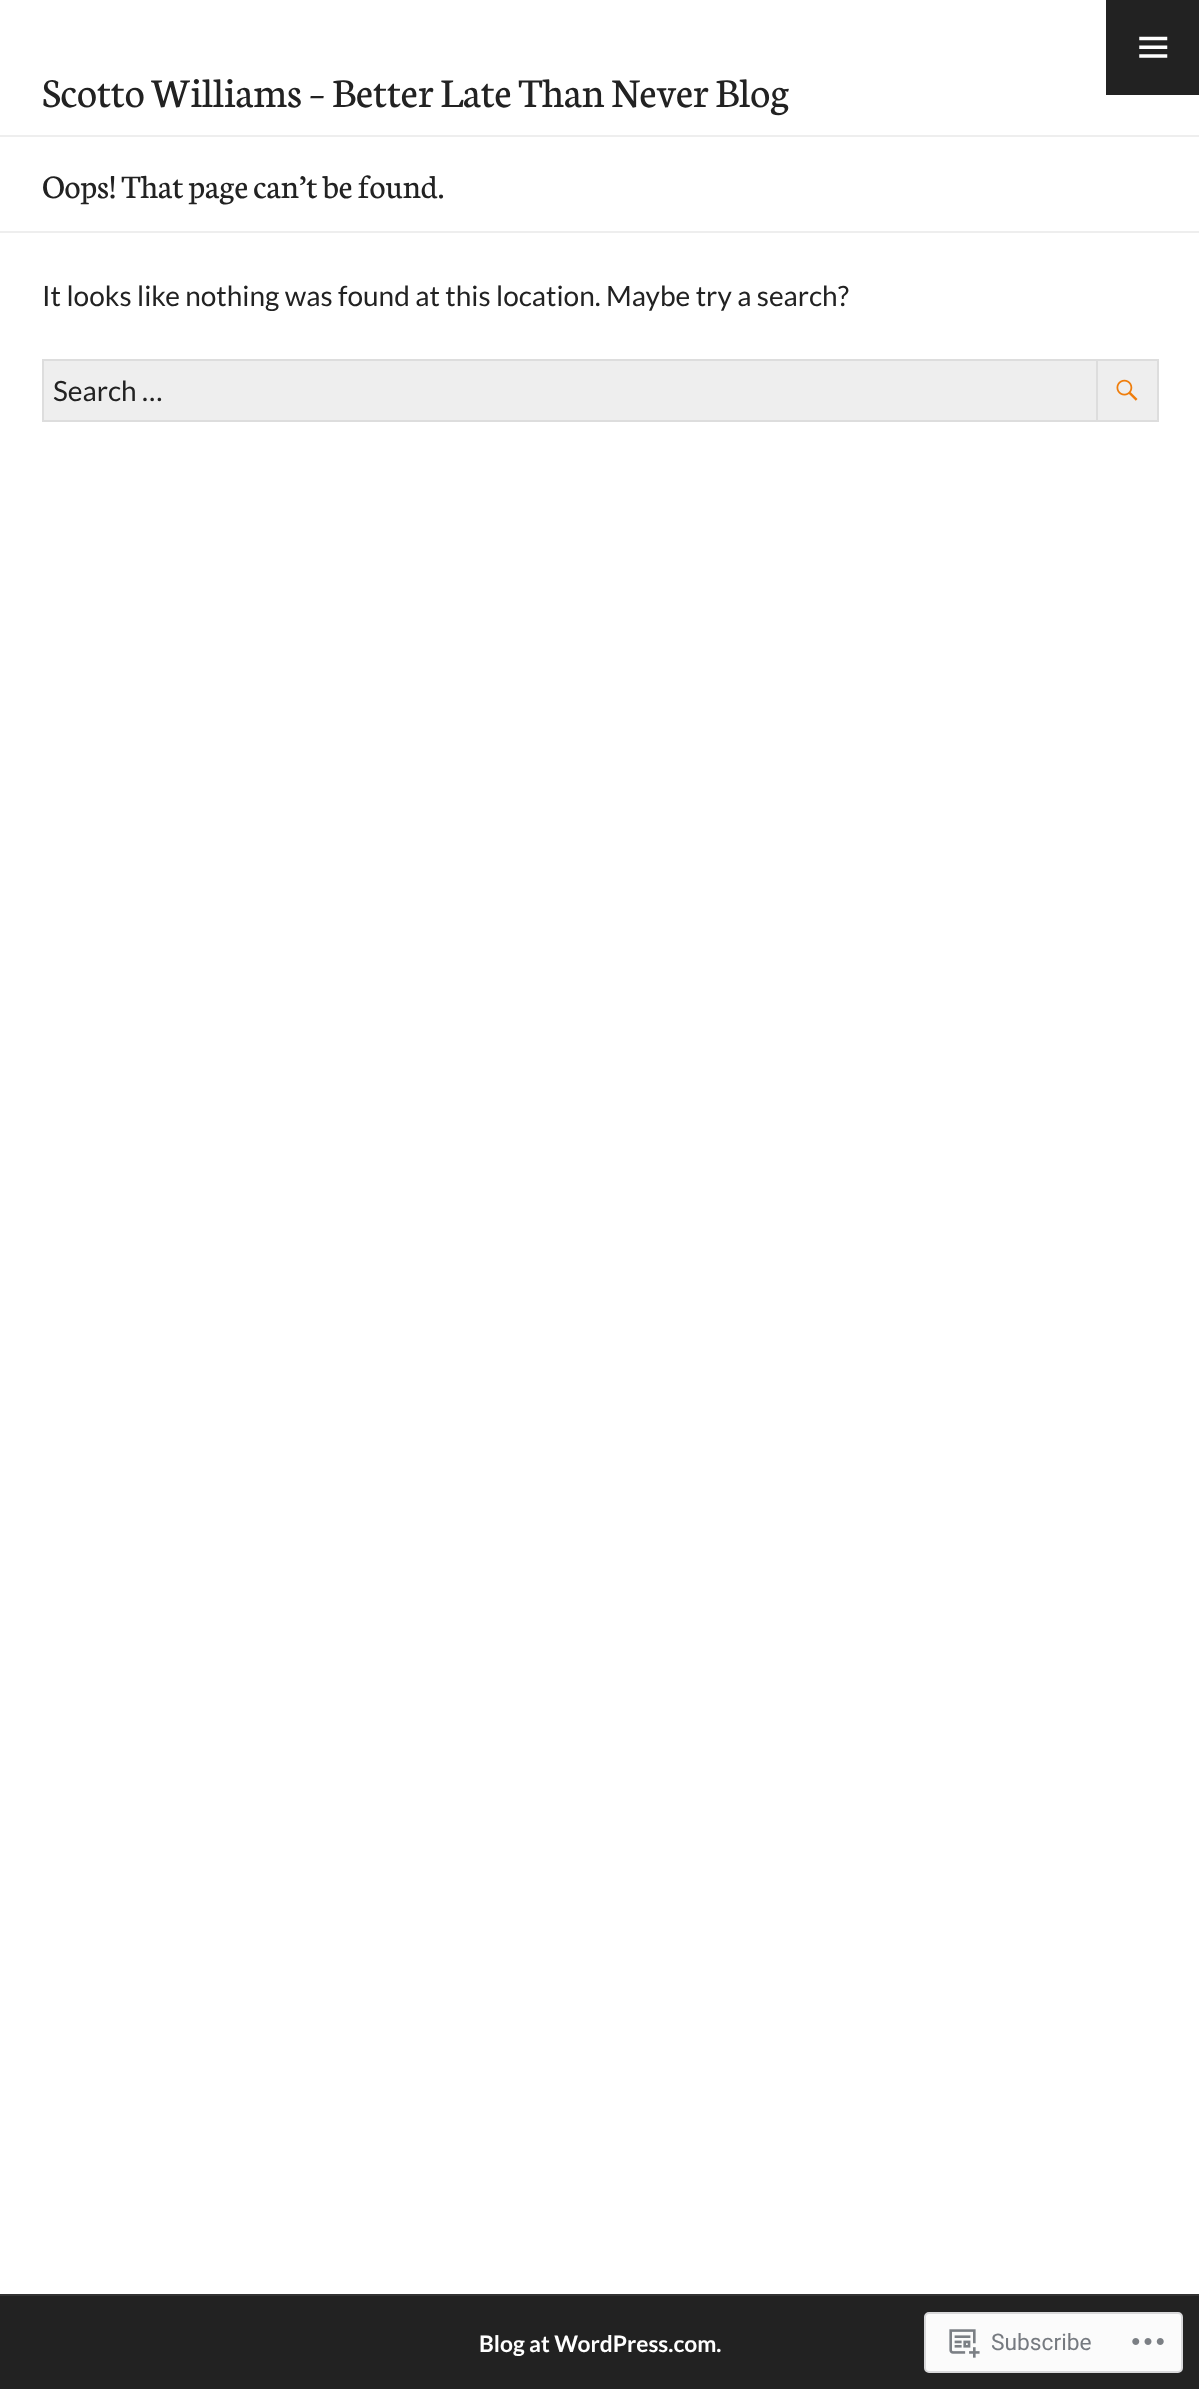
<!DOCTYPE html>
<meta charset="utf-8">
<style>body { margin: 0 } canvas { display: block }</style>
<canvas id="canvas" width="1199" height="2389"></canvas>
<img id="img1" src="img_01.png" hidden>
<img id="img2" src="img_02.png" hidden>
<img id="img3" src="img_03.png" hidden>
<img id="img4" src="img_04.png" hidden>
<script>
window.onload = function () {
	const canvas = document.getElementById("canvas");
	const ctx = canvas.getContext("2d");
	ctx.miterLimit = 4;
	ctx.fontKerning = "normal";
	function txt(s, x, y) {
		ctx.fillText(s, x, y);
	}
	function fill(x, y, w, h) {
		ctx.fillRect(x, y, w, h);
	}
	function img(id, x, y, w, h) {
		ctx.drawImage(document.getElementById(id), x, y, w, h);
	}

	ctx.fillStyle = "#FFFFFF";
	fill(0, 0, 1199, 2389);
	ctx.fillStyle = "#EEEEEE";
	fill(0, 135, 1199, 2);
	ctx.fillStyle = "#222222";
	fill(1106, 0, 93, 95);
	img("img1", 1139, 36, 29, 22);
	ctx.fillStyle = "#EEEEEE";
	fill(0, 231, 1199, 2);
	fill(44, 361, 1052, 59);
	ctx.strokeStyle = "#DDDDDD";
	ctx.lineWidth = 2;
	ctx.strokeRect(43, 360, 1115, 61);
	fill(1098, 361, 59, 59);
	img("img2", 1116, 379, 22, 22);
	ctx.strokeRect(1097, 360, 61, 61);
	ctx.fillStyle = "#222222";
	fill(0, 2296, 1199, 93);
	ctx.fillStyle = "#333333";
	fill(0, 2294, 1199, 2);
	ctx.fillStyle = "#FBFBFB";
	ctx.beginPath();
	ctx.roundRect(925, 2313, 257, 59, 4);
	ctx.fill();
	ctx.strokeStyle = "#D8D8DA";
	ctx.stroke();
	img("img3", 949, 2329, 31, 29);
	img("img4", 1132, 2338, 32, 7);
	ctx.font = "43.75px Neuton";
	ctx.fillStyle = "#222222";
	txt("Scotto Williams – Better Late Than Never Blog", 42, 107);
	ctx.font = "35px Neuton";
	txt("Oops! That page can’t be found.", 42, 198);
	ctx.font = "28px Lato";
	txt("It looks like nothing was found at this location. Maybe try a search?", 42, 306);
	txt("Search …", 53, 401);
	ctx.font = "bold 22.75px Lato";
	ctx.fillStyle = "#FFFFFF";
	txt("Blog at WordPress.com.", 479, 2352);
	ctx.font = "22.75px Roboto";
	ctx.fillStyle = "#767A80";
	txt("Subscribe", 991, 2350);
};
</script>
